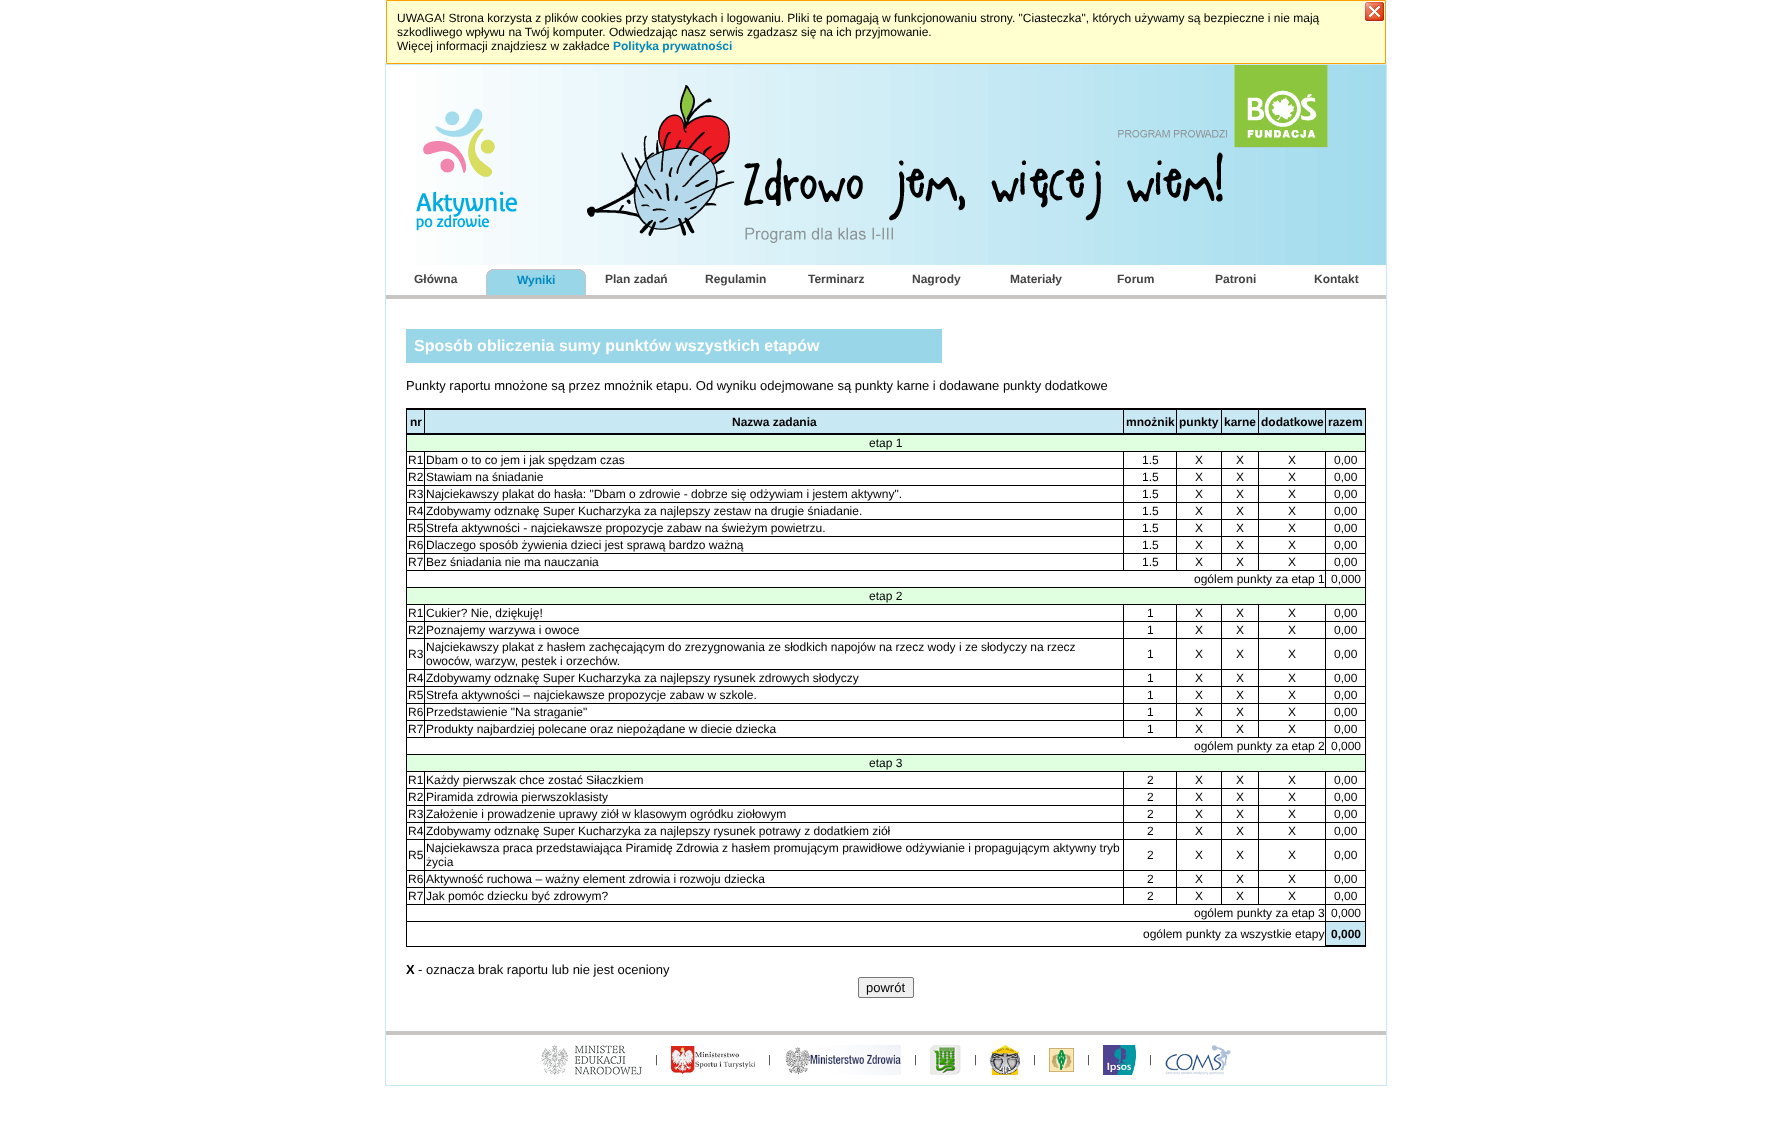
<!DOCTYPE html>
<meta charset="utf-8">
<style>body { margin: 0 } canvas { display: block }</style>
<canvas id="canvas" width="1772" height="1142"></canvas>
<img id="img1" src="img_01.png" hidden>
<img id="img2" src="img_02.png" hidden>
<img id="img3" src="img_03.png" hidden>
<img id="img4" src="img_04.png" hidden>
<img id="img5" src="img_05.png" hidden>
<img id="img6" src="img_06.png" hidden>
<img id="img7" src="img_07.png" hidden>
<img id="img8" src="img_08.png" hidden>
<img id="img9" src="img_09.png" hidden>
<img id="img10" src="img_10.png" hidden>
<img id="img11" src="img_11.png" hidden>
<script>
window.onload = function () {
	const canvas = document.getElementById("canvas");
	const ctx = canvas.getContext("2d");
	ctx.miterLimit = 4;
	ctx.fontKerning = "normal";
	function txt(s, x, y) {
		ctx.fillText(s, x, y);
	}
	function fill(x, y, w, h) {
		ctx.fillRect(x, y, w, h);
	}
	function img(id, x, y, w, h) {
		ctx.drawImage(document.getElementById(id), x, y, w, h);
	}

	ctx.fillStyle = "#FFFFFF";
	fill(0, 0, 1772, 1142);
	ctx.fillStyle = "#FFFFD0";
	ctx.beginPath();
	ctx.rect(386.5, 0.5, 999, 63);
	ctx.fill();
	ctx.strokeStyle = "#FFA000";
	ctx.stroke();
	img("img1", 1364, 1, 21, 21);
	ctx.strokeStyle = "#C8E8F3";
	ctx.strokeRect(385.5, 64.5, 1001, 1021);
	img("img2", 416, 65, 970, 200);
	ctx.fillStyle = "#C7C6C4";
	fill(386, 295, 1000, 4);
	img("img3", 486, 269, 100, 26);
	ctx.fillStyle = "#99D6E8";
	fill(406, 329, 536, 34);
	ctx.fillStyle = "#000000";
	fill(406, 408, 960, 1);
	fill(406, 946, 960, 1);
	fill(406, 408, 1, 539);
	ctx.fillStyle = "#C8E8F3";
	fill(407, 410, 17, 23);
	ctx.fillStyle = "#000000";
	fill(407, 409, 959, 1);
	fill(424, 409, 1, 25);
	fill(407, 433, 18, 1);
	ctx.fillStyle = "#C8E8F3";
	fill(425, 410, 698, 23);
	ctx.fillStyle = "#000000";
	fill(1123, 409, 1, 25);
	fill(425, 433, 699, 1);
	ctx.fillStyle = "#C8E8F3";
	fill(1124, 410, 52, 23);
	ctx.fillStyle = "#000000";
	fill(1176, 409, 1, 25);
	fill(1124, 433, 53, 1);
	ctx.fillStyle = "#C8E8F3";
	fill(1177, 410, 44, 23);
	ctx.fillStyle = "#000000";
	fill(1221, 409, 1, 25);
	fill(1177, 433, 45, 1);
	ctx.fillStyle = "#C8E8F3";
	fill(1222, 410, 36, 23);
	ctx.fillStyle = "#000000";
	fill(1258, 409, 1, 25);
	fill(1222, 433, 37, 1);
	ctx.fillStyle = "#C8E8F3";
	fill(1259, 410, 66, 23);
	ctx.fillStyle = "#000000";
	fill(1325, 409, 1, 25);
	fill(1259, 433, 67, 1);
	ctx.fillStyle = "#C8E8F3";
	fill(1326, 410, 39, 23);
	ctx.fillStyle = "#000000";
	fill(1365, 409, 1, 25);
	fill(1326, 433, 40, 1);
	ctx.fillStyle = "#E0FFE0";
	fill(407, 435, 958, 16);
	ctx.fillStyle = "#000000";
	fill(407, 434, 959, 1);
	fill(1365, 434, 1, 17);
	fill(407, 451, 959, 1);
	fill(424, 451, 1, 17);
	fill(1123, 451, 1, 17);
	fill(1176, 451, 1, 17);
	fill(1221, 451, 1, 17);
	fill(1258, 451, 1, 17);
	fill(1325, 451, 1, 17);
	fill(1365, 451, 1, 17);
	fill(407, 468, 959, 1);
	fill(424, 468, 1, 17);
	fill(1123, 468, 1, 17);
	fill(1176, 468, 1, 17);
	fill(1221, 468, 1, 17);
	fill(1258, 468, 1, 17);
	fill(1325, 468, 1, 17);
	fill(1365, 468, 1, 17);
	fill(407, 485, 959, 1);
	fill(424, 485, 1, 17);
	fill(1123, 485, 1, 17);
	fill(1176, 485, 1, 17);
	fill(1221, 485, 1, 17);
	fill(1258, 485, 1, 17);
	fill(1325, 485, 1, 17);
	fill(1365, 485, 1, 17);
	fill(407, 502, 959, 1);
	fill(424, 502, 1, 17);
	fill(1123, 502, 1, 17);
	fill(1176, 502, 1, 17);
	fill(1221, 502, 1, 17);
	fill(1258, 502, 1, 17);
	fill(1325, 502, 1, 17);
	fill(1365, 502, 1, 17);
	fill(407, 519, 959, 1);
	fill(424, 519, 1, 17);
	fill(1123, 519, 1, 17);
	fill(1176, 519, 1, 17);
	fill(1221, 519, 1, 17);
	fill(1258, 519, 1, 17);
	fill(1325, 519, 1, 17);
	fill(1365, 519, 1, 17);
	fill(407, 536, 959, 1);
	fill(424, 536, 1, 17);
	fill(1123, 536, 1, 17);
	fill(1176, 536, 1, 17);
	fill(1221, 536, 1, 17);
	fill(1258, 536, 1, 17);
	fill(1325, 536, 1, 17);
	fill(1365, 536, 1, 17);
	fill(407, 553, 959, 1);
	fill(424, 553, 1, 17);
	fill(1123, 553, 1, 17);
	fill(1176, 553, 1, 17);
	fill(1221, 553, 1, 17);
	fill(1258, 553, 1, 17);
	fill(1325, 553, 1, 17);
	fill(1365, 553, 1, 17);
	fill(407, 570, 959, 1);
	fill(1325, 570, 1, 17);
	fill(1365, 570, 1, 17);
	ctx.fillStyle = "#E0FFE0";
	fill(407, 588, 958, 16);
	ctx.fillStyle = "#000000";
	fill(407, 587, 959, 1);
	fill(1365, 587, 1, 17);
	fill(407, 604, 959, 1);
	fill(424, 604, 1, 17);
	fill(1123, 604, 1, 17);
	fill(1176, 604, 1, 17);
	fill(1221, 604, 1, 17);
	fill(1258, 604, 1, 17);
	fill(1325, 604, 1, 17);
	fill(1365, 604, 1, 17);
	fill(407, 621, 959, 1);
	fill(424, 621, 1, 17);
	fill(1123, 621, 1, 17);
	fill(1176, 621, 1, 17);
	fill(1221, 621, 1, 17);
	fill(1258, 621, 1, 17);
	fill(1325, 621, 1, 17);
	fill(1365, 621, 1, 17);
	fill(407, 638, 959, 1);
	fill(424, 638, 1, 31);
	fill(1123, 638, 1, 31);
	fill(1176, 638, 1, 31);
	fill(1221, 638, 1, 31);
	fill(1258, 638, 1, 31);
	fill(1325, 638, 1, 31);
	fill(1365, 638, 1, 31);
	fill(407, 669, 959, 1);
	fill(424, 669, 1, 17);
	fill(1123, 669, 1, 17);
	fill(1176, 669, 1, 17);
	fill(1221, 669, 1, 17);
	fill(1258, 669, 1, 17);
	fill(1325, 669, 1, 17);
	fill(1365, 669, 1, 17);
	fill(407, 686, 959, 1);
	fill(424, 686, 1, 17);
	fill(1123, 686, 1, 17);
	fill(1176, 686, 1, 17);
	fill(1221, 686, 1, 17);
	fill(1258, 686, 1, 17);
	fill(1325, 686, 1, 17);
	fill(1365, 686, 1, 17);
	fill(407, 703, 959, 1);
	fill(424, 703, 1, 17);
	fill(1123, 703, 1, 17);
	fill(1176, 703, 1, 17);
	fill(1221, 703, 1, 17);
	fill(1258, 703, 1, 17);
	fill(1325, 703, 1, 17);
	fill(1365, 703, 1, 17);
	fill(407, 720, 959, 1);
	fill(424, 720, 1, 17);
	fill(1123, 720, 1, 17);
	fill(1176, 720, 1, 17);
	fill(1221, 720, 1, 17);
	fill(1258, 720, 1, 17);
	fill(1325, 720, 1, 17);
	fill(1365, 720, 1, 17);
	fill(407, 737, 959, 1);
	fill(1325, 737, 1, 17);
	fill(1365, 737, 1, 17);
	ctx.fillStyle = "#E0FFE0";
	fill(407, 755, 958, 16);
	ctx.fillStyle = "#000000";
	fill(407, 754, 959, 1);
	fill(1365, 754, 1, 17);
	fill(407, 771, 959, 1);
	fill(424, 771, 1, 17);
	fill(1123, 771, 1, 17);
	fill(1176, 771, 1, 17);
	fill(1221, 771, 1, 17);
	fill(1258, 771, 1, 17);
	fill(1325, 771, 1, 17);
	fill(1365, 771, 1, 17);
	fill(407, 788, 959, 1);
	fill(424, 788, 1, 17);
	fill(1123, 788, 1, 17);
	fill(1176, 788, 1, 17);
	fill(1221, 788, 1, 17);
	fill(1258, 788, 1, 17);
	fill(1325, 788, 1, 17);
	fill(1365, 788, 1, 17);
	fill(407, 805, 959, 1);
	fill(424, 805, 1, 17);
	fill(1123, 805, 1, 17);
	fill(1176, 805, 1, 17);
	fill(1221, 805, 1, 17);
	fill(1258, 805, 1, 17);
	fill(1325, 805, 1, 17);
	fill(1365, 805, 1, 17);
	fill(407, 822, 959, 1);
	fill(424, 822, 1, 17);
	fill(1123, 822, 1, 17);
	fill(1176, 822, 1, 17);
	fill(1221, 822, 1, 17);
	fill(1258, 822, 1, 17);
	fill(1325, 822, 1, 17);
	fill(1365, 822, 1, 17);
	fill(407, 839, 959, 1);
	fill(424, 839, 1, 31);
	fill(1123, 839, 1, 31);
	fill(1176, 839, 1, 31);
	fill(1221, 839, 1, 31);
	fill(1258, 839, 1, 31);
	fill(1325, 839, 1, 31);
	fill(1365, 839, 1, 31);
	fill(407, 870, 959, 1);
	fill(424, 870, 1, 17);
	fill(1123, 870, 1, 17);
	fill(1176, 870, 1, 17);
	fill(1221, 870, 1, 17);
	fill(1258, 870, 1, 17);
	fill(1325, 870, 1, 17);
	fill(1365, 870, 1, 17);
	fill(407, 887, 959, 1);
	fill(424, 887, 1, 17);
	fill(1123, 887, 1, 17);
	fill(1176, 887, 1, 17);
	fill(1221, 887, 1, 17);
	fill(1258, 887, 1, 17);
	fill(1325, 887, 1, 17);
	fill(1365, 887, 1, 17);
	fill(407, 904, 959, 1);
	fill(1325, 904, 1, 17);
	fill(1365, 904, 1, 17);
	fill(407, 921, 959, 1);
	fill(1325, 921, 1, 25);
	ctx.fillStyle = "#C8E8F3";
	fill(1326, 922, 39, 23);
	ctx.fillStyle = "#000000";
	fill(1365, 921, 1, 25);
	fill(1326, 945, 40, 1);
	ctx.fillStyle = "#EFEFEF";
	ctx.beginPath();
	ctx.roundRect(858.5, 977.5, 55, 20, 1.5);
	ctx.fill();
	ctx.strokeStyle = "#767676";
	ctx.stroke();
	ctx.fillStyle = "#C7C6C4";
	fill(386, 1031, 1000, 4);
	img("img4", 541, 1045, 101, 30);
	img("img5", 671, 1046, 84, 29);
	img("img6", 785, 1045, 116, 30);
	img("img7", 930, 1045, 31, 30);
	img("img8", 990, 1045, 30, 30);
	img("img9", 1049, 1048, 25, 24);
	img("img10", 1103, 1045, 33, 30);
	img("img11", 1165, 1045, 66, 30);
	ctx.font = "12px Liberation Sans";
	ctx.fillStyle = "#000000";
	txt("UWAGA! Strona korzysta z plików cookies przy statystykach i logowaniu. Pliki te pomagają w funkcjonowaniu strony. \"Ciasteczka\", których używamy są bezpieczne i nie mają", 397, 22);
	txt("szkodliwego wpływu na Twój komputer. Odwiedzając nasz serwis zgadzasz się na ich przyjmowanie.", 397, 36);
	txt("Więcej informacji znajdziesz w zakładce", 397, 50);
	ctx.font = "bold 12px Liberation Sans";
	ctx.fillStyle = "#0288BE";
	txt("Polityka prywatności", 613, 50);
	ctx.fillStyle = "#444444";
	txt("Główna", 414, 283);
	ctx.fillStyle = "#0288BE";
	txt("Wyniki", 517, 284);
	ctx.fillStyle = "#444444";
	txt("Plan zadań", 605, 283);
	txt("Regulamin", 705, 283);
	txt("Terminarz", 808, 283);
	txt("Nagrody", 912, 283);
	txt("Materiały", 1010, 283);
	txt("Forum", 1117, 283);
	txt("Patroni", 1215, 283);
	txt("Kontakt", 1314, 283);
	ctx.font = "bold 16px Liberation Sans";
	ctx.fillStyle = "#FFFFFF";
	txt("Sposób obliczenia sumy punktów wszystkich etapów", 414, 351);
	ctx.font = "13px Liberation Sans";
	ctx.fillStyle = "#000000";
	txt("Punkty raportu mnożone są przez mnożnik etapu. Od wyniku odejmowane są punkty karne i dodawane punkty dodatkowe", 406, 390);
	ctx.font = "bold 12px Liberation Sans";
	txt("nr", 410, 426);
	txt("Nazwa zadania", 732, 426);
	txt("mnożnik", 1126, 426);
	txt("punkty", 1179, 426);
	txt("karne", 1224, 426);
	txt("dodatkowe", 1261, 426);
	txt("razem", 1328, 426);
	ctx.font = "12px Liberation Sans";
	txt("etap 1", 869, 447);
	txt("R1", 408, 464);
	txt("Dbam o to co jem i jak spędzam czas", 426, 464);
	txt("1.5", 1142, 464);
	txt("X", 1195, 464);
	txt("X", 1236, 464);
	txt("X", 1288, 464);
	txt("0,00", 1334, 464);
	txt("R2", 408, 481);
	txt("Stawiam na śniadanie", 426, 481);
	txt("1.5", 1142, 481);
	txt("X", 1195, 481);
	txt("X", 1236, 481);
	txt("X", 1288, 481);
	txt("0,00", 1334, 481);
	txt("R3", 408, 498);
	txt("Najciekawszy plakat do hasła: \"Dbam o zdrowie - dobrze się odżywiam i jestem aktywny\".", 426, 498);
	txt("1.5", 1142, 498);
	txt("X", 1195, 498);
	txt("X", 1236, 498);
	txt("X", 1288, 498);
	txt("0,00", 1334, 498);
	txt("R4", 408, 515);
	txt("Zdobywamy odznakę Super Kucharzyka za najlepszy zestaw na drugie śniadanie.", 426, 515);
	txt("1.5", 1142, 515);
	txt("X", 1195, 515);
	txt("X", 1236, 515);
	txt("X", 1288, 515);
	txt("0,00", 1334, 515);
	txt("R5", 408, 532);
	txt("Strefa aktywności - najciekawsze propozycje zabaw na świeżym powietrzu.", 426, 532);
	txt("1.5", 1142, 532);
	txt("X", 1195, 532);
	txt("X", 1236, 532);
	txt("X", 1288, 532);
	txt("0,00", 1334, 532);
	txt("R6", 408, 549);
	txt("Dlaczego sposób żywienia dzieci jest sprawą bardzo ważną", 426, 549);
	txt("1.5", 1142, 549);
	txt("X", 1195, 549);
	txt("X", 1236, 549);
	txt("X", 1288, 549);
	txt("0,00", 1334, 549);
	txt("R7", 408, 566);
	txt("Bez śniadania nie ma nauczania", 426, 566);
	txt("1.5", 1142, 566);
	txt("X", 1195, 566);
	txt("X", 1236, 566);
	txt("X", 1288, 566);
	txt("0,00", 1334, 566);
	txt("ogólem punkty za etap 1", 1194, 583);
	txt("0,000", 1331, 583);
	txt("etap 2", 869, 600);
	txt("R1", 408, 617);
	txt("Cukier? Nie, dziękuję!", 426, 617);
	txt("1", 1147, 617);
	txt("X", 1195, 617);
	txt("X", 1236, 617);
	txt("X", 1288, 617);
	txt("0,00", 1334, 617);
	txt("R2", 408, 634);
	txt("Poznajemy warzywa i owoce", 426, 634);
	txt("1", 1147, 634);
	txt("X", 1195, 634);
	txt("X", 1236, 634);
	txt("X", 1288, 634);
	txt("0,00", 1334, 634);
	txt("R3", 408, 658);
	txt("Najciekawszy plakat z hasłem zachęcającym do zrezygnowania ze słodkich napojów na rzecz wody i ze słodyczy na rzecz", 426, 651);
	txt("owoców, warzyw, pestek i orzechów.", 426, 665);
	txt("1", 1147, 658);
	txt("X", 1195, 658);
	txt("X", 1236, 658);
	txt("X", 1288, 658);
	txt("0,00", 1334, 658);
	txt("R4", 408, 682);
	txt("Zdobywamy odznakę Super Kucharzyka za najlepszy rysunek zdrowych słodyczy", 426, 682);
	txt("1", 1147, 682);
	txt("X", 1195, 682);
	txt("X", 1236, 682);
	txt("X", 1288, 682);
	txt("0,00", 1334, 682);
	txt("R5", 408, 699);
	txt("Strefa aktywności – najciekawsze propozycje zabaw w szkole.", 426, 699);
	txt("1", 1147, 699);
	txt("X", 1195, 699);
	txt("X", 1236, 699);
	txt("X", 1288, 699);
	txt("0,00", 1334, 699);
	txt("R6", 408, 716);
	txt("Przedstawienie \"Na straganie\"", 426, 716);
	txt("1", 1147, 716);
	txt("X", 1195, 716);
	txt("X", 1236, 716);
	txt("X", 1288, 716);
	txt("0,00", 1334, 716);
	txt("R7", 408, 733);
	txt("Produkty najbardziej polecane oraz niepożądane w diecie dziecka", 426, 733);
	txt("1", 1147, 733);
	txt("X", 1195, 733);
	txt("X", 1236, 733);
	txt("X", 1288, 733);
	txt("0,00", 1334, 733);
	txt("ogólem punkty za etap 2", 1194, 750);
	txt("0,000", 1331, 750);
	txt("etap 3", 869, 767);
	txt("R1", 408, 784);
	txt("Każdy pierwszak chce zostać Siłaczkiem", 426, 784);
	txt("2", 1147, 784);
	txt("X", 1195, 784);
	txt("X", 1236, 784);
	txt("X", 1288, 784);
	txt("0,00", 1334, 784);
	txt("R2", 408, 801);
	txt("Piramida zdrowia pierwszoklasisty", 426, 801);
	txt("2", 1147, 801);
	txt("X", 1195, 801);
	txt("X", 1236, 801);
	txt("X", 1288, 801);
	txt("0,00", 1334, 801);
	txt("R3", 408, 818);
	txt("Założenie i prowadzenie uprawy ziół w klasowym ogródku ziołowym", 426, 818);
	txt("2", 1147, 818);
	txt("X", 1195, 818);
	txt("X", 1236, 818);
	txt("X", 1288, 818);
	txt("0,00", 1334, 818);
	txt("R4", 408, 835);
	txt("Zdobywamy odznakę Super Kucharzyka za najlepszy rysunek potrawy z dodatkiem ziół", 426, 835);
	txt("2", 1147, 835);
	txt("X", 1195, 835);
	txt("X", 1236, 835);
	txt("X", 1288, 835);
	txt("0,00", 1334, 835);
	txt("R5", 408, 859);
	txt("Najciekawsza praca przedstawiająca Piramidę Zdrowia z hasłem promującym prawidłowe odżywianie i propagującym aktywny tryb", 426, 852);
	txt("życia", 426, 866);
	txt("2", 1147, 859);
	txt("X", 1195, 859);
	txt("X", 1236, 859);
	txt("X", 1288, 859);
	txt("0,00", 1334, 859);
	txt("R6", 408, 883);
	txt("Aktywność ruchowa – ważny element zdrowia i rozwoju dziecka", 426, 883);
	txt("2", 1147, 883);
	txt("X", 1195, 883);
	txt("X", 1236, 883);
	txt("X", 1288, 883);
	txt("0,00", 1334, 883);
	txt("R7", 408, 900);
	txt("Jak pomóc dziecku być zdrowym?", 426, 900);
	txt("2", 1147, 900);
	txt("X", 1195, 900);
	txt("X", 1236, 900);
	txt("X", 1288, 900);
	txt("0,00", 1334, 900);
	txt("ogólem punkty za etap 3", 1194, 917);
	txt("0,000", 1331, 917);
	txt("ogólem punkty za wszystkie etapy", 1143, 938);
	ctx.font = "bold 12px Liberation Sans";
	txt("0,000", 1331, 938);
	ctx.font = "bold 13px Liberation Sans";
	txt("X", 406, 974);
	ctx.font = "13px Liberation Sans";
	txt("- oznacza brak raportu lub nie jest oceniony", 418, 974);
	txt("powrót", 866, 992);
	ctx.font = "11px Liberation Sans";
	ctx.fillStyle = "#444444";
	txt("|", 655, 1063);
	txt("|", 768, 1063);
	txt("|", 914, 1063);
	txt("|", 974, 1063);
	txt("|", 1033, 1063);
	txt("|", 1087, 1063);
	txt("|", 1149, 1063);
};
</script>
